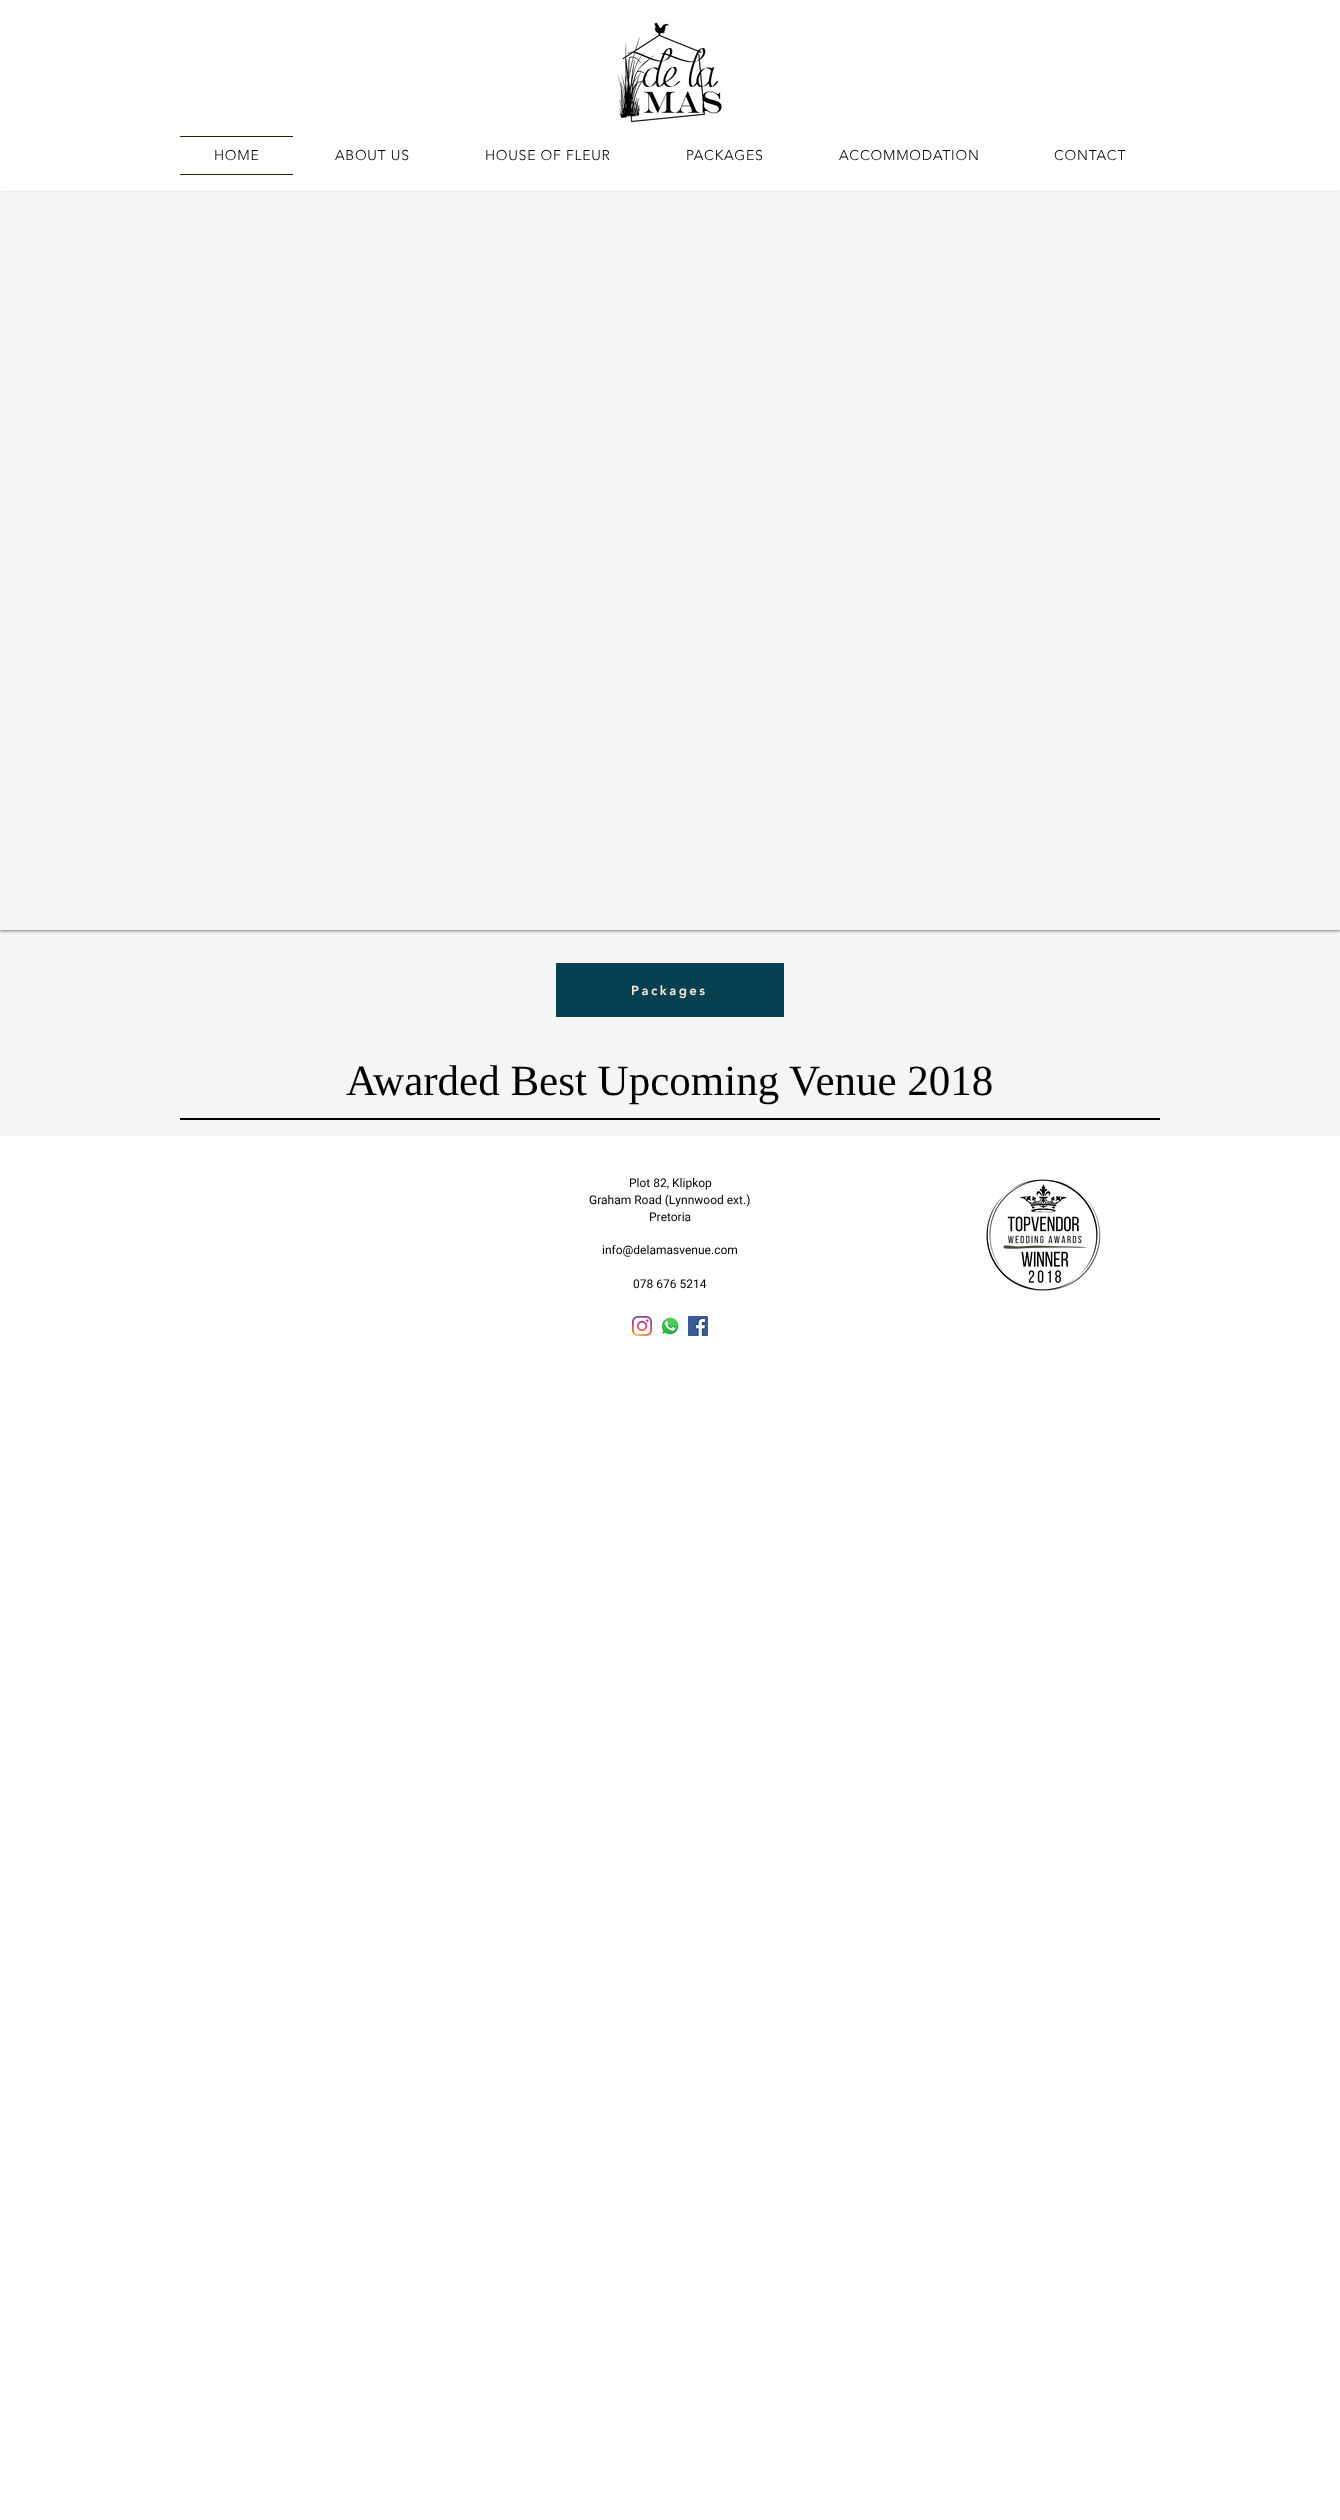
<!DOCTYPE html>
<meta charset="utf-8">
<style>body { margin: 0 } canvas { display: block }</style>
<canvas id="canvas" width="1340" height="2520"></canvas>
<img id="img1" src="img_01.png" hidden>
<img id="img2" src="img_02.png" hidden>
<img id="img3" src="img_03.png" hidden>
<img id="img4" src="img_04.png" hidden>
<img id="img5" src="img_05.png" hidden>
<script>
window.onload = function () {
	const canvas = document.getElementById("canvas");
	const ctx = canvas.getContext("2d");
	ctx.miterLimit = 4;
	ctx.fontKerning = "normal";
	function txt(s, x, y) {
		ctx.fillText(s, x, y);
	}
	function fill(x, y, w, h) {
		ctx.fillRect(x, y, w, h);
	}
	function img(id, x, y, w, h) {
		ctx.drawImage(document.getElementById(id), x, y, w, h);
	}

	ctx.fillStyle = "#FFFFFF";
	fill(0, 0, 1340, 2520);
	img("img1", 617, 22, 105, 101);
	ctx.fillStyle = "#301C0D";
	fill(180, 136, 113, 1);
	fill(180, 174, 113, 1);
	ctx.fillStyle = "#F3F6F4";
	fill(0, 192, 1340, 944);
	ctx.save();
	ctx.beginPath();
	ctx.moveTo(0, 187);
	ctx.lineTo(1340, 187);
	ctx.lineTo(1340, 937);
	ctx.lineTo(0, 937);
	ctx.closePath();
	ctx.moveTo(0, 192);
	ctx.lineTo(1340, 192);
	ctx.lineTo(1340, 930);
	ctx.lineTo(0, 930);
	ctx.closePath();
	ctx.clip("evenodd");
	ctx.fillStyle = "rgba(0, 0, 0, 0.5)";
	ctx.filter = "blur(1.5px)";
	ctx.beginPath();
	ctx.rect(0, 193, 1340, 738);
	ctx.fill();
	ctx.filter = "none";
	ctx.restore();
	ctx.fillStyle = "#074151";
	fill(556, 963, 228, 54);
	ctx.fillStyle = "#000000";
	fill(180, 1118, 980, 2);
	img("img2", 986, 1179, 115, 112);
	img("img3", 632, 1316, 20, 20);
	img("img4", 660, 1317, 20, 19);
	img("img5", 688, 1316, 20, 20);
	ctx.letterSpacing = "0.75px";
	ctx.font = "300 14px 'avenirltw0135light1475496'";
	txt("HOME", 214, 160);
	txt("ABOUT US", 335, 160);
	txt("HOUSE OF FLEUR", 485, 160);
	txt("PACKAGES", 686, 160);
	txt("ACCOMMODATION", 839, 160);
	txt("CONTACT", 1054, 160);
	ctx.letterSpacing = "2.5px";
	ctx.font = "900 13px 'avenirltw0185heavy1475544'";
	ctx.fillStyle = "#F9EADD";
	txt("Packages", 631, 995);
	ctx.letterSpacing = "0px";
	ctx.font = "43px Liberation Serif";
	ctx.fillStyle = "#000000";
	txt("Awarded Best Upcoming Venue 2018", 346, 1095);
	ctx.font = "12px Heebo";
	txt("Plot 82, Klipkop", 629, 1187);
	txt("Graham Road (Lynnwood ext.)", 589, 1204);
	txt("Pretoria", 649, 1221);
	txt("info@delamasvenue.com", 602, 1254);
	txt("078 676 5214", 633, 1288);
};
</script>
